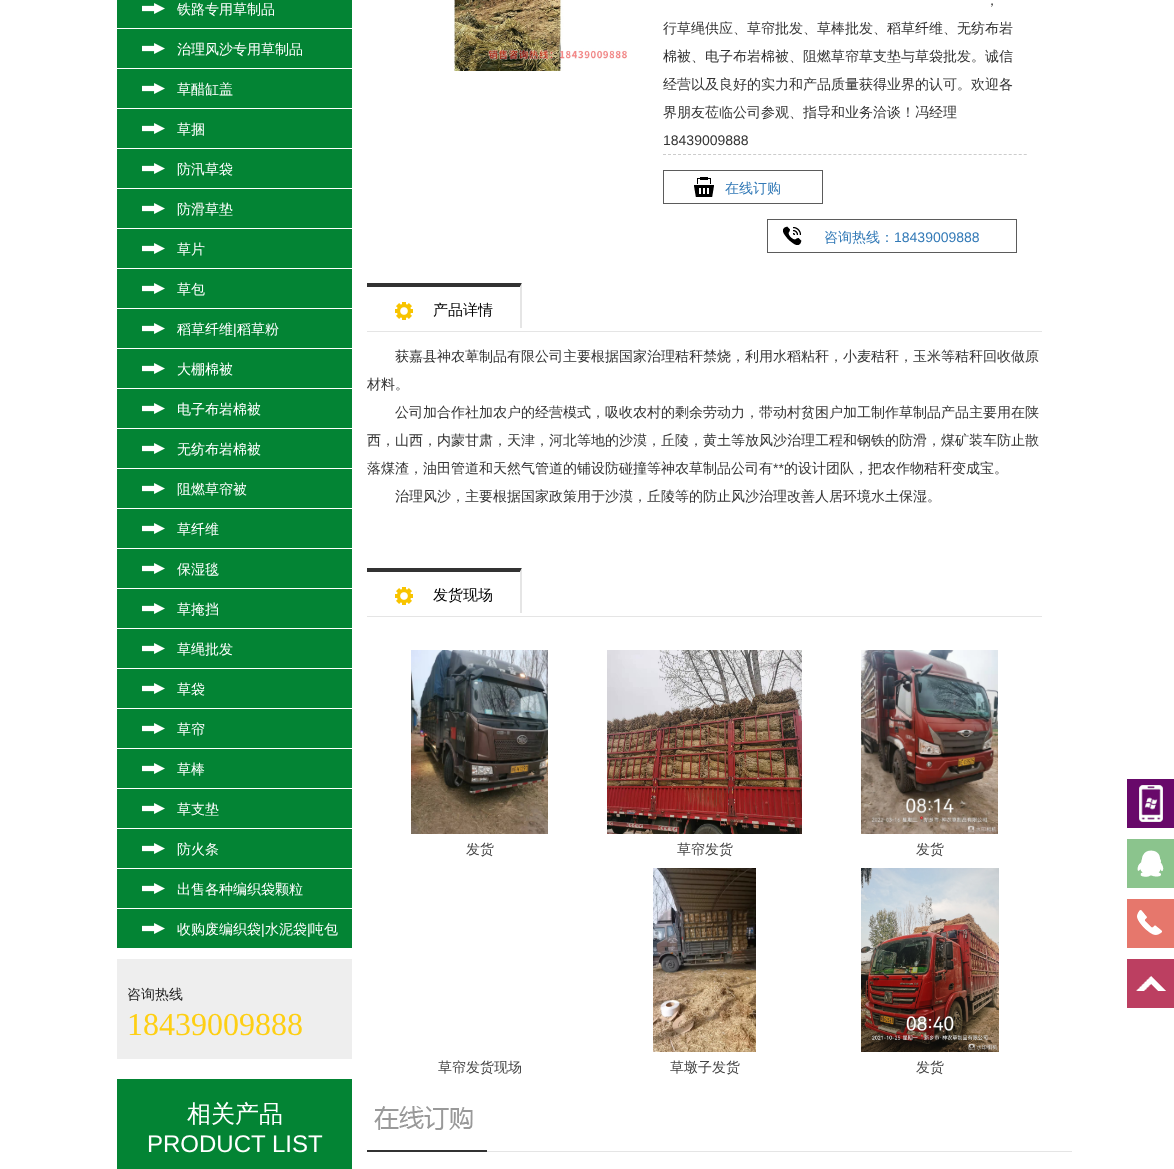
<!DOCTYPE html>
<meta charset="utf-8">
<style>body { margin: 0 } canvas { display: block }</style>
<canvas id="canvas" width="1174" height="1169"></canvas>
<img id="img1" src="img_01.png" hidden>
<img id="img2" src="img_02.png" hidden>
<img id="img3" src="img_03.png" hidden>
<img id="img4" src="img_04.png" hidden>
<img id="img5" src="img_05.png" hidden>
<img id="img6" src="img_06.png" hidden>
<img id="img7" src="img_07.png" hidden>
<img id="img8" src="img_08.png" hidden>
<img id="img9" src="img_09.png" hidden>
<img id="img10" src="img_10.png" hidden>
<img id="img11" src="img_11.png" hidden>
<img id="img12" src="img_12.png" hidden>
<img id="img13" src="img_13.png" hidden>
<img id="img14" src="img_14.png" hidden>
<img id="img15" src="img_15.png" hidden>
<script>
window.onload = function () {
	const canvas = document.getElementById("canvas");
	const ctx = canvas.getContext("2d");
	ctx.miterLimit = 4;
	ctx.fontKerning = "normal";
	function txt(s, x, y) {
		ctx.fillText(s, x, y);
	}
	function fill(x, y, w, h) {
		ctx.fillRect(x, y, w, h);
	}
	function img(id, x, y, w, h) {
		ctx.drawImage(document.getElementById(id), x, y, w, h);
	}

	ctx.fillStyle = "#FFFFFF";
	fill(0, 0, 1174, 1169);
	ctx.fillStyle = "#038434";
	fill(117, 0, 235, 28);
	img("img1", 142, 3, 23, 11);
	fill(117, 29, 235, 39);
	img("img1", 142, 43, 23, 11);
	fill(117, 69, 235, 39);
	img("img1", 142, 83, 23, 11);
	fill(117, 109, 235, 39);
	img("img1", 142, 123, 23, 11);
	fill(117, 149, 235, 39);
	img("img1", 142, 163, 23, 11);
	fill(117, 189, 235, 39);
	img("img1", 142, 203, 23, 11);
	fill(117, 229, 235, 39);
	img("img1", 142, 243, 23, 11);
	fill(117, 269, 235, 39);
	img("img1", 142, 283, 23, 11);
	fill(117, 309, 235, 39);
	img("img1", 142, 323, 23, 11);
	fill(117, 349, 235, 39);
	img("img1", 142, 363, 23, 11);
	fill(117, 389, 235, 39);
	img("img1", 142, 403, 23, 11);
	fill(117, 429, 235, 39);
	img("img1", 142, 443, 23, 11);
	fill(117, 469, 235, 39);
	img("img1", 142, 483, 23, 11);
	fill(117, 509, 235, 39);
	img("img1", 142, 523, 23, 11);
	fill(117, 549, 235, 39);
	img("img1", 142, 563, 23, 11);
	fill(117, 589, 235, 39);
	img("img1", 142, 603, 23, 11);
	fill(117, 629, 235, 39);
	img("img1", 142, 643, 23, 11);
	fill(117, 669, 235, 39);
	img("img1", 142, 683, 23, 11);
	fill(117, 709, 235, 39);
	img("img1", 142, 723, 23, 11);
	fill(117, 749, 235, 39);
	img("img1", 142, 763, 23, 11);
	fill(117, 789, 235, 39);
	img("img1", 142, 803, 23, 11);
	fill(117, 829, 235, 39);
	img("img1", 142, 843, 23, 11);
	fill(117, 869, 235, 39);
	img("img1", 142, 883, 23, 11);
	fill(117, 909, 235, 39);
	img("img1", 142, 923, 23, 11);
	ctx.fillStyle = "#EEEEEE";
	fill(117, 959, 235, 100);
	ctx.fillStyle = "#038434";
	fill(117, 1079, 235, 90);
	img("img2", 454, 0, 173, 71);
	ctx.beginPath();
	ctx.moveTo(663, 154.5);
	ctx.lineTo(1027, 154.5);
	ctx.strokeStyle = "#CCCCCC";
	ctx.setLineDash([3, 2.01]);
	ctx.stroke();
	img("img3", 694, 177, 20, 20);
	ctx.strokeStyle = "#5B5B5B";
	ctx.setLineDash([]);
	ctx.strokeRect(663.5, 170.5, 159, 33);
	img("img4", 783, 226, 19, 19);
	ctx.strokeRect(767.5, 219.5, 249, 33);
	ctx.fillStyle = "#E5E5E5";
	fill(367, 331, 675, 1);
	ctx.fillStyle = "#323232";
	ctx.beginPath();
	ctx.moveTo(367, 283);
	ctx.lineTo(522, 283);
	ctx.lineTo(520, 287);
	ctx.lineTo(367, 287);
	ctx.closePath();
	ctx.fill();
	ctx.fillStyle = "#E5E5E5";
	ctx.beginPath();
	ctx.moveTo(522, 283);
	ctx.lineTo(522, 328);
	ctx.lineTo(520, 328);
	ctx.lineTo(520, 287);
	ctx.closePath();
	ctx.fill();
	img("img5", 395, 302, 18, 18);
	fill(367, 616, 675, 1);
	ctx.fillStyle = "#323232";
	ctx.beginPath();
	ctx.moveTo(367, 568);
	ctx.lineTo(522, 568);
	ctx.lineTo(520, 572);
	ctx.lineTo(367, 572);
	ctx.closePath();
	ctx.fill();
	ctx.fillStyle = "#E5E5E5";
	ctx.beginPath();
	ctx.moveTo(522, 568);
	ctx.lineTo(522, 613);
	ctx.lineTo(520, 613);
	ctx.lineTo(520, 572);
	ctx.closePath();
	ctx.fill();
	img("img5", 395, 587, 18, 18);
	img("img6", 411, 650, 137, 184);
	img("img7", 607, 650, 195, 184);
	img("img8", 861, 650, 137, 184);
	img("img9", 653, 868, 103, 184);
	img("img10", 861, 868, 138, 184);
	img("img11", 367, 1106, 705, 46);
	img("img12", 1127, 779, 47, 49);
	img("img13", 1127, 839, 47, 49);
	img("img14", 1127, 899, 47, 49);
	img("img15", 1127, 959, 47, 49);
	ctx.font = "500 14px WenQuanYi Zen Hei";
	ctx.fillStyle = "#FFFFFF";
	txt("铁路专用草制品", 177, 14);
	txt("治理风沙专用草制品", 177, 54);
	txt("草醋缸盖", 177, 94);
	txt("草捆", 177, 134);
	txt("防汛草袋", 177, 174);
	txt("防滑草垫", 177, 214);
	txt("草片", 177, 254);
	txt("草包", 177, 294);
	txt("稻草纤维", 177, 334);
	ctx.font = "14px Liberation Sans";
	txt("|", 233, 334);
	ctx.font = "500 14px WenQuanYi Zen Hei";
	txt("稻草粉", 237, 334);
	txt("大棚棉被", 177, 374);
	txt("电子布岩棉被", 177, 414);
	txt("无纺布岩棉被", 177, 454);
	txt("阻燃草帘被", 177, 494);
	txt("草纤维", 177, 534);
	txt("保湿毯", 177, 574);
	txt("草掩挡", 177, 614);
	txt("草绳批发", 177, 654);
	txt("草袋", 177, 694);
	txt("草帘", 177, 734);
	txt("草棒", 177, 774);
	txt("草支垫", 177, 814);
	txt("防火条", 177, 854);
	txt("出售各种编织袋颗粒", 177, 894);
	txt("收购废编织袋", 177, 934);
	ctx.font = "14px Liberation Sans";
	txt("|", 261, 934);
	ctx.font = "500 14px WenQuanYi Zen Hei";
	txt("水泥袋", 265, 934);
	ctx.font = "14px Liberation Sans";
	txt("|", 307, 934);
	ctx.font = "500 14px WenQuanYi Zen Hei";
	txt("吨包", 310, 934);
	ctx.fillStyle = "#232323";
	txt("咨询热线", 127, 999);
	ctx.font = "32px Liberation Serif";
	ctx.fillStyle = "#FECF13";
	txt("18439009888", 127, 1035);
	ctx.font = "500 24px WenQuanYi Zen Hei";
	ctx.fillStyle = "#FFFFFF";
	txt("相关产品", 187, 1122);
	ctx.font = "24px Liberation Sans";
	txt("PRODUCT LIST", 147, 1152);
	ctx.font = "500 14px WenQuanYi Zen Hei";
	ctx.fillStyle = "#333333";
	txt("，", 985, 5);
	txt("行草绳供应、草帘批发、草棒批发、稻草纤维、无纺布岩", 663, 33);
	txt("棉被、电子布岩棉被、阻燃草帘草支垫与草袋批发。诚信", 663, 61);
	txt("经营以及良好的实力和产品质量获得业界的认可。欢迎各", 663, 89);
	txt("界朋友莅临公司参观、指导和业务洽谈！冯经理", 663, 117);
	ctx.font = "14px Liberation Sans";
	txt("18439009888", 663, 145);
	ctx.font = "500 14px WenQuanYi Zen Hei";
	ctx.fillStyle = "#337AB7";
	txt("在线订购", 725, 193);
	txt("咨询热线：", 824, 242);
	ctx.font = "14px Liberation Sans";
	txt("18439009888", 894, 242);
	ctx.font = "500 15px WenQuanYi Zen Hei";
	ctx.fillStyle = "#000000";
	txt("产品详情", 433, 315);
	ctx.font = "500 14px WenQuanYi Zen Hei";
	ctx.fillStyle = "#333333";
	txt("获嘉县神农萆制品有限公司主要根据国家治理秸秆禁烧，利用水稻粘秆，小麦秸秆，玉米等秸秆回收做原", 395, 361);
	txt("材料。", 367, 389);
	txt("公司加合作社加农户的经营模式，吸收农村的剩余劳动力，带动村贫困户加工制作草制品产品主要用在陕", 395, 417);
	txt("西，山西，内蒙甘肃，天津，河北等地的沙漠，丘陵，黄土等放风沙治理工程和钢铁的防滑，煤矿装车防止散", 367, 445);
	txt("落煤渣，油田管道和天然气管道的铺设防碰撞等神农草制品公司有", 367, 473);
	ctx.font = "14px Liberation Sans";
	txt("**", 773, 473);
	ctx.font = "500 14px WenQuanYi Zen Hei";
	txt("的设计团队，把农作物秸秆变成宝。", 784, 473);
	txt("治理风沙，主要根据国家政策用于沙漠，丘陵等的防止风沙治理改善人居环境水土保湿。", 395, 501);
	ctx.font = "500 15px WenQuanYi Zen Hei";
	ctx.fillStyle = "#000000";
	txt("发货现场", 433, 600);
	ctx.font = "500 14px WenQuanYi Zen Hei";
	ctx.fillStyle = "#444444";
	txt("发货", 466, 854);
	txt("草帘发货", 677, 854);
	txt("发货", 916, 854);
	txt("草帘发货现场", 438, 1072);
	txt("草墩子发货", 670, 1072);
	txt("发货", 916, 1072);
};
</script>
